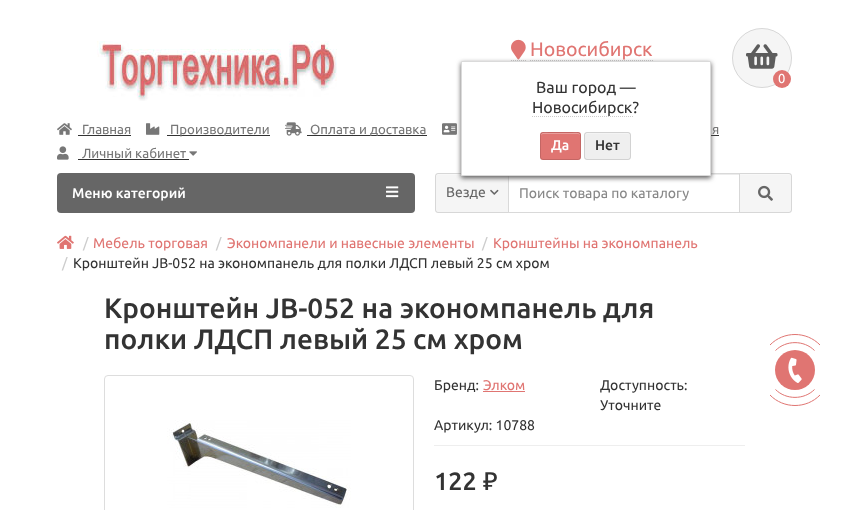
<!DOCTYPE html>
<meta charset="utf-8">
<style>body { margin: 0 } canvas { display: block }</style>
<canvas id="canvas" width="849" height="510"></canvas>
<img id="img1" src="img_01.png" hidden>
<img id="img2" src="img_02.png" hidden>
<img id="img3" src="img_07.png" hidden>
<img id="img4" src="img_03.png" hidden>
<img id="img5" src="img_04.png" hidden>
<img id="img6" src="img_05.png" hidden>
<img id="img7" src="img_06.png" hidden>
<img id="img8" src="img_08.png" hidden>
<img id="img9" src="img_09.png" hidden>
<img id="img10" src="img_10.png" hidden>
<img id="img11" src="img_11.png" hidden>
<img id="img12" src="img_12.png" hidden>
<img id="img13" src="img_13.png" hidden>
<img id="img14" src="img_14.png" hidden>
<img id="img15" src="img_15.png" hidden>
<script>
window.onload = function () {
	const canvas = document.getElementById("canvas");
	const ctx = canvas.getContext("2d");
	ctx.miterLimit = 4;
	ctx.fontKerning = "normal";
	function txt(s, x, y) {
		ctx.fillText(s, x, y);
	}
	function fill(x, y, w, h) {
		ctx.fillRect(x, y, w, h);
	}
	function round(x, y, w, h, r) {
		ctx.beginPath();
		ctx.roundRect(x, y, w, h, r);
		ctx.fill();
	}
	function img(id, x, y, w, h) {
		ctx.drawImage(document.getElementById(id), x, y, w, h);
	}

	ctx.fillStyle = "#FFFFFF";
	fill(0, 0, 849, 510);
	img("img1", 97, 41, 240, 60);
	ctx.beginPath();
	ctx.moveTo(511, 60.5);
	ctx.lineTo(526, 60.5);
	ctx.strokeStyle = "#CCCCCC";
	ctx.setLineDash([1, 1]);
	ctx.stroke();
	img("img2", 511, 39, 15, 21);
	ctx.beginPath();
	ctx.moveTo(530, 60.5);
	ctx.lineTo(653, 60.5);
	ctx.stroke();
	img("img3", 442, 123, 15, 12);
	ctx.fillStyle = "#333333";
	fill(711, 135, 8, 1);
	ctx.fillStyle = "#F5F5F5";
	ctx.beginPath();
	ctx.roundRect(435, 173, 75, 40, [3, 0, 0, 3]);
	ctx.fill();
	ctx.fillStyle = "#F8F8F8";
	ctx.beginPath();
	ctx.moveTo(438, 175);
	ctx.lineTo(509, 175);
	ctx.lineTo(509, 174);
	ctx.lineTo(438, 174);
	ctx.bezierCurveTo(437, 174, 436, 175, 436, 176);
	ctx.lineTo(436, 177);
	ctx.bezierCurveTo(436, 176, 437, 175, 438, 175);
	ctx.closePath();
	ctx.fill();
	ctx.beginPath();
	ctx.roundRect(435.5, 173.5, 74, 39, [2.5, 0, 0, 2.5]);
	ctx.strokeStyle = "rgba(0, 0, 0, 0.12)";
	ctx.setLineDash([]);
	ctx.stroke();
	ctx.fillStyle = "#FFFFFF";
	fill(509, 175, 1, 37);
	ctx.fillStyle = "#ECECEC";
	fill(711, 174, 28, 1);
	ctx.strokeStyle = "#D9D9D9";
	ctx.strokeRect(508.5, 173.5, 231, 39);
	ctx.fillStyle = "#5B5A5A";
	ctx.filter = "blur(2.5px)";
	ctx.beginPath();
	ctx.rect(461, 63, 250, 115);
	ctx.fill();
	ctx.filter = "none";
	ctx.fillStyle = "#FFFFFF";
	ctx.beginPath();
	ctx.rect(461.5, 61.5, 249, 114);
	ctx.fill();
	ctx.strokeStyle = "#DADADA";
	ctx.stroke();
	ctx.beginPath();
	ctx.moveTo(532, 116.5);
	ctx.lineTo(633, 116.5);
	ctx.strokeStyle = "#CCCCCC";
	ctx.setLineDash([1, 1]);
	ctx.stroke();
	ctx.fillStyle = "#E07572";
	round(540, 132, 41, 28, 3);
	ctx.fillStyle = "#E99E9C";
	ctx.beginPath();
	ctx.moveTo(543, 134);
	ctx.lineTo(578, 134);
	ctx.bezierCurveTo(579, 134, 580, 135, 580, 136);
	ctx.bezierCurveTo(580, 131.5, 576, 133, 572, 133);
	ctx.lineTo(549, 133);
	ctx.bezierCurveTo(545, 133, 541, 131.5, 541, 136);
	ctx.bezierCurveTo(541, 135, 542, 134, 543, 134);
	ctx.closePath();
	ctx.fill();
	ctx.beginPath();
	ctx.roundRect(540.5, 132.5, 40, 27, 2.5);
	ctx.strokeStyle = "rgba(0, 0, 0, 0.12)";
	ctx.setLineDash([]);
	ctx.stroke();
	ctx.fillStyle = "#EFEFEF";
	round(584, 132, 47, 28, 3);
	ctx.fillStyle = "#F4F4F4";
	ctx.beginPath();
	ctx.moveTo(587, 134);
	ctx.lineTo(628, 134);
	ctx.bezierCurveTo(629, 134, 630, 135, 630, 136);
	ctx.bezierCurveTo(630, 131, 625, 133, 621, 133);
	ctx.lineTo(594, 133);
	ctx.bezierCurveTo(590, 133, 585, 131, 585, 136);
	ctx.bezierCurveTo(585, 135, 586, 134, 587, 134);
	ctx.closePath();
	ctx.fill();
	ctx.beginPath();
	ctx.roundRect(584.5, 132.5, 46, 27, 2.5);
	ctx.stroke();
	ctx.fillStyle = "#F5F5F5";
	ctx.beginPath();
	ctx.arc(762, 58, 30, 0, Math.PI * 2);
	ctx.fill();
	ctx.beginPath();
	ctx.arc(762, 58, 29.5, 0, Math.PI * 2);
	ctx.stroke();
	img("img4", 746, 44, 32, 25);
	ctx.fillStyle = "#E07572";
	ctx.beginPath();
	ctx.arc(782, 79, 9, 0, Math.PI * 2);
	ctx.fill();
	img("img5", 57, 123, 15, 12);
	ctx.fillStyle = "#333333";
	fill(78, 135, 53, 1);
	img("img6", 146, 123, 14, 12);
	fill(167, 135, 103, 1);
	img("img7", 285, 122, 17, 14);
	fill(307, 135, 120, 1);
	img("img8", 57, 146, 12, 14);
	img("img9", 189, 151, 8, 5);
	fill(78, 159, 111, 1);
	ctx.fillStyle = "#666666";
	round(57, 173, 358, 40, 4);
	img("img10", 386, 186, 13, 12);
	img("img11", 490, 189, 9, 6);
	ctx.fillStyle = "#F5F5F5";
	ctx.beginPath();
	ctx.roundRect(739, 173, 53, 40, [0, 3, 3, 0]);
	ctx.fill();
	ctx.fillStyle = "#F8F8F8";
	ctx.beginPath();
	ctx.moveTo(740, 175);
	ctx.lineTo(789, 175);
	ctx.bezierCurveTo(790, 175, 791, 176, 791, 177);
	ctx.lineTo(791, 176);
	ctx.bezierCurveTo(791, 175, 790, 174, 789, 174);
	ctx.lineTo(740, 174);
	ctx.closePath();
	ctx.fill();
	ctx.beginPath();
	ctx.roundRect(739.5, 173.5, 52, 39, [0, 2.5, 2.5, 0]);
	ctx.stroke();
	img("img12", 758, 185, 15, 16);
	img("img13", 57, 235, 17, 14);
	ctx.beginPath();
	ctx.roundRect(104.5, 375.5, 309, 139, 3.5);
	ctx.strokeStyle = "#DDDDDD";
	ctx.stroke();
	img("img14", 167, 420, 184, 88);
	ctx.fillStyle = "#E07572";
	fill(483, 391, 42, 1);
	ctx.fillStyle = "#EEEEEE";
	fill(434, 445, 311, 1);
	ctx.fillStyle = "#E07572";
	ctx.beginPath();
	ctx.arc(795, 370, 20, 0, Math.PI * 2);
	ctx.fill();
	ctx.beginPath();
	ctx.moveTo(775.5, 350.5);
	ctx.bezierCurveTo(786, 340, 804, 340, 814.5, 350.5);
	ctx.moveTo(814.5, 389.5);
	ctx.bezierCurveTo(804, 400, 786, 400, 775.5, 389.5);
	ctx.strokeStyle = "#E07572";
	ctx.stroke();
	ctx.beginPath();
	ctx.moveTo(770, 345);
	ctx.bezierCurveTo(783.5, 331, 806.5, 331, 820, 345);
	ctx.stroke();
	ctx.beginPath();
	ctx.moveTo(820, 395);
	ctx.bezierCurveTo(806.5, 409, 783.5, 409, 770, 395);
	ctx.stroke();
	img("img15", 788, 357, 14, 26);
	ctx.font = "19.5px Ubuntu";
	txt("Новосибирск", 530, 56);
	ctx.font = "16px Ubuntu";
	ctx.fillStyle = "#333333";
	txt("Ваш город —", 536, 93);
	txt("Новосибирск?", 532, 113);
	ctx.font = "500 14px Ubuntu";
	ctx.fillStyle = "#FFFFFF";
	txt("Да", 551, 150);
	ctx.fillStyle = "#333333";
	txt("Нет", 595, 150);
	ctx.font = "13px Ubuntu";
	ctx.fillStyle = "#FFFFFF";
	txt("0", 778, 83);
	ctx.font = "13.25px Ubuntu";
	ctx.fillStyle = "#777777";
	txt("Главная", 82, 134);
	txt("Производители", 170, 134);
	txt("Оплата и доставка", 310, 134);
	txt("я", 712, 134);
	txt("Личный кабинет", 82, 158);
	ctx.font = "500 14px Ubuntu";
	ctx.fillStyle = "#FFFFFF";
	txt("Меню категорий", 72, 198);
	ctx.font = "14px Ubuntu";
	ctx.fillStyle = "#666666";
	txt("Везде", 446, 197);
	ctx.fillStyle = "#888888";
	txt("Поиск товара по каталогу", 519, 198);
	ctx.fillStyle = "#CCCCCC";
	txt("/", 83, 248);
	ctx.fillStyle = "#E07572";
	txt("Мебель торговая", 93, 248);
	ctx.fillStyle = "#CCCCCC";
	txt("/", 216, 248);
	ctx.fillStyle = "#E07572";
	txt("Экономпанели и навесные элементы", 227, 248);
	ctx.fillStyle = "#CCCCCC";
	txt("/", 482, 248);
	ctx.fillStyle = "#E07572";
	txt("Кронштейны на экономпанель", 493, 248);
	ctx.fillStyle = "#CCCCCC";
	txt("/", 62, 268);
	ctx.fillStyle = "#333333";
	txt("Кронштейн JB-052 на экономпанель для полки ЛДСП левый 25 см хром", 73, 268);
	ctx.font = "500 28px Ubuntu";
	txt("Кронштейн JB-052 на экономпанель для", 104, 318);
	txt("полки ЛДСП левый 25 см хром", 104, 349);
	ctx.font = "14px Ubuntu";
	txt("Бренд:", 434, 390);
	ctx.fillStyle = "#E07572";
	txt("Элком", 483, 390);
	ctx.fillStyle = "#333333";
	txt("Доступность:", 600, 390);
	txt("Уточните", 600, 410);
	txt("Артикул: 10788", 434, 430);
	ctx.font = "500 25px Ubuntu";
	txt("122", 434, 490);
	ctx.font = "500 25px Noto Sans";
	txt("₽", 483, 490);
};
</script>
